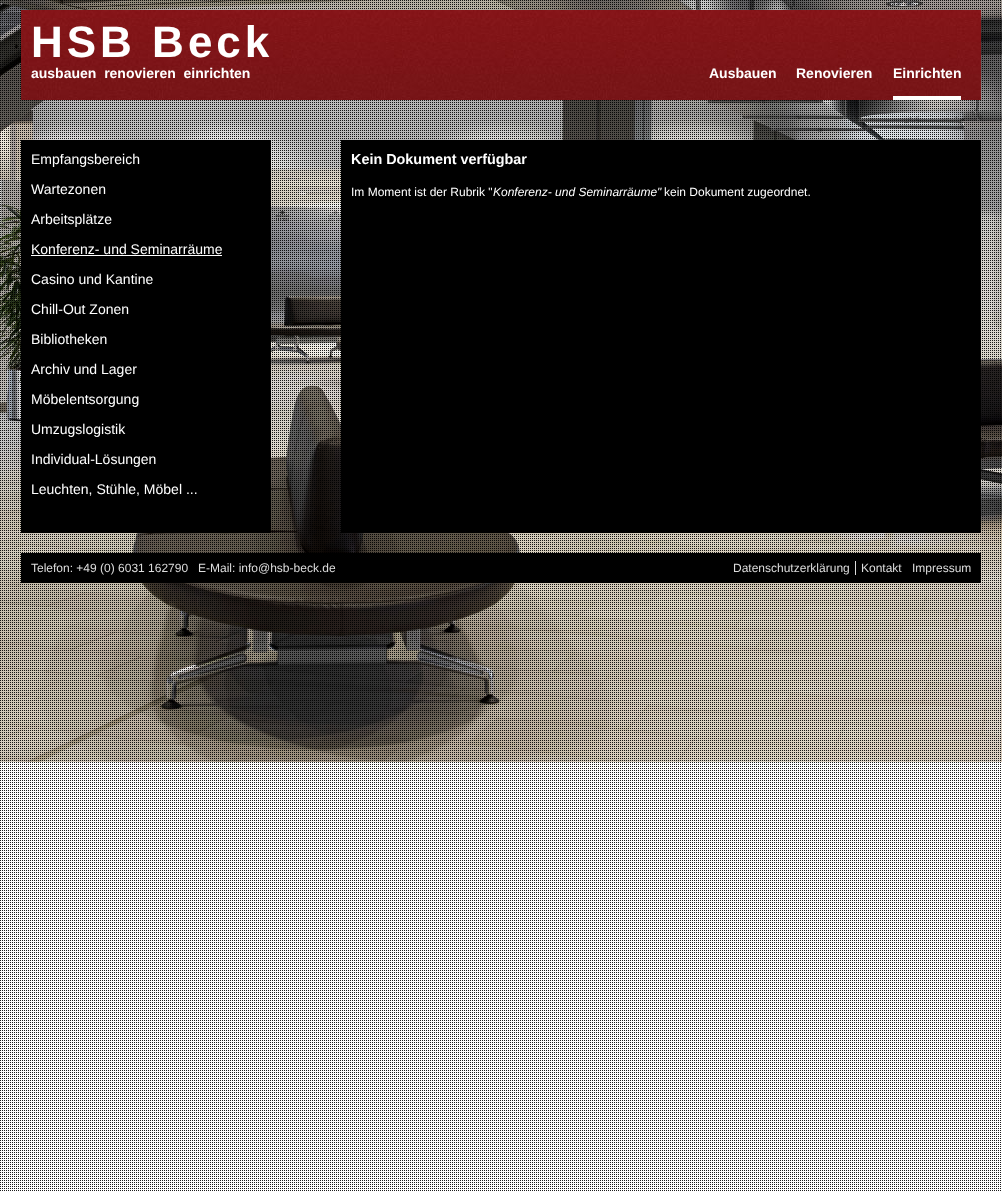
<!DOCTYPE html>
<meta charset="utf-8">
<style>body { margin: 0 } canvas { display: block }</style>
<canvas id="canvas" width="1002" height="1191"></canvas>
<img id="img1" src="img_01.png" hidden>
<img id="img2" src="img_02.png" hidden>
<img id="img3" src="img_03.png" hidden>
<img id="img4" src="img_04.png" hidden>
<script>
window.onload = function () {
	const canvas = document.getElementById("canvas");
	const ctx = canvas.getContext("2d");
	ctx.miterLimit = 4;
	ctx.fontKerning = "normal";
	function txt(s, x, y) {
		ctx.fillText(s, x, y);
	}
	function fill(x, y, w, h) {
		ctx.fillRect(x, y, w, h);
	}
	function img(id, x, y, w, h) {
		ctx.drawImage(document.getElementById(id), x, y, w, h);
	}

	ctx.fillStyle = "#FFFFFF";
	fill(0, 0, 1002, 1191);
	img("img1", 0, 0, 1002, 762);
	img("img2", 0, 0, 1001, 1191);
	img("img3", 21, 10, 960, 90);
	fill(893, 96, 68, 4);
	img("img4", 21, 140, 960, 393);
	fill(31, 255, 191, 1);
	ctx.fillStyle = "#000000";
	fill(21, 553, 960, 30);
	ctx.fillStyle = "#DDDDDD";
	fill(855, 561, 1, 14);
	ctx.letterSpacing = "4px";
	ctx.font = "bold 44px Liberation Sans";
	ctx.fillStyle = "#FFFFFF";
	txt("HSB Beck", 31, 57);
	ctx.letterSpacing = "0px";
	ctx.font = "bold 14px Liberation Sans";
	txt("ausbauen  renovieren  einrichten", 31, 78);
	txt("Ausbauen", 709, 78);
	txt("Renovieren", 796, 78);
	txt("Einrichten", 893, 78);
	ctx.font = "14px Liberation Sans";
	txt("Empfangsbereich", 31, 164);
	txt("Wartezonen", 31, 194);
	txt("Arbeitsplätze", 31, 224);
	txt("Konferenz- und Seminarräume", 31, 254);
	txt("Casino und Kantine", 31, 284);
	txt("Chill-Out Zonen", 31, 314);
	txt("Bibliotheken", 31, 344);
	txt("Archiv und Lager", 31, 374);
	txt("Möbelentsorgung", 31, 404);
	txt("Umzugslogistik", 31, 434);
	txt("Individual-Lösungen", 31, 464);
	txt("Leuchten, Stühle, Möbel ...", 31, 494);
	ctx.font = "bold 14.4px Liberation Sans";
	txt("Kein Dokument verfügbar", 351, 164);
	ctx.font = "12px Liberation Sans";
	txt("Im Moment ist der Rubrik \"", 351, 196);
	ctx.font = "italic 12px Liberation Sans";
	txt("Konferenz- und Seminarräume\"", 493, 196);
	ctx.font = "12px Liberation Sans";
	txt("kein Dokument zugeordnet.", 664, 196);
	ctx.fillStyle = "#DDDDDD";
	txt("Telefon: +49 (0) 6031 162790", 31, 572);
	txt("E-Mail: info@hsb-beck.de", 198, 572);
	txt("Datenschutzerklärung", 733, 572);
	txt("Kontakt", 861, 572);
	txt("Impressum", 912, 572);
};
</script>
